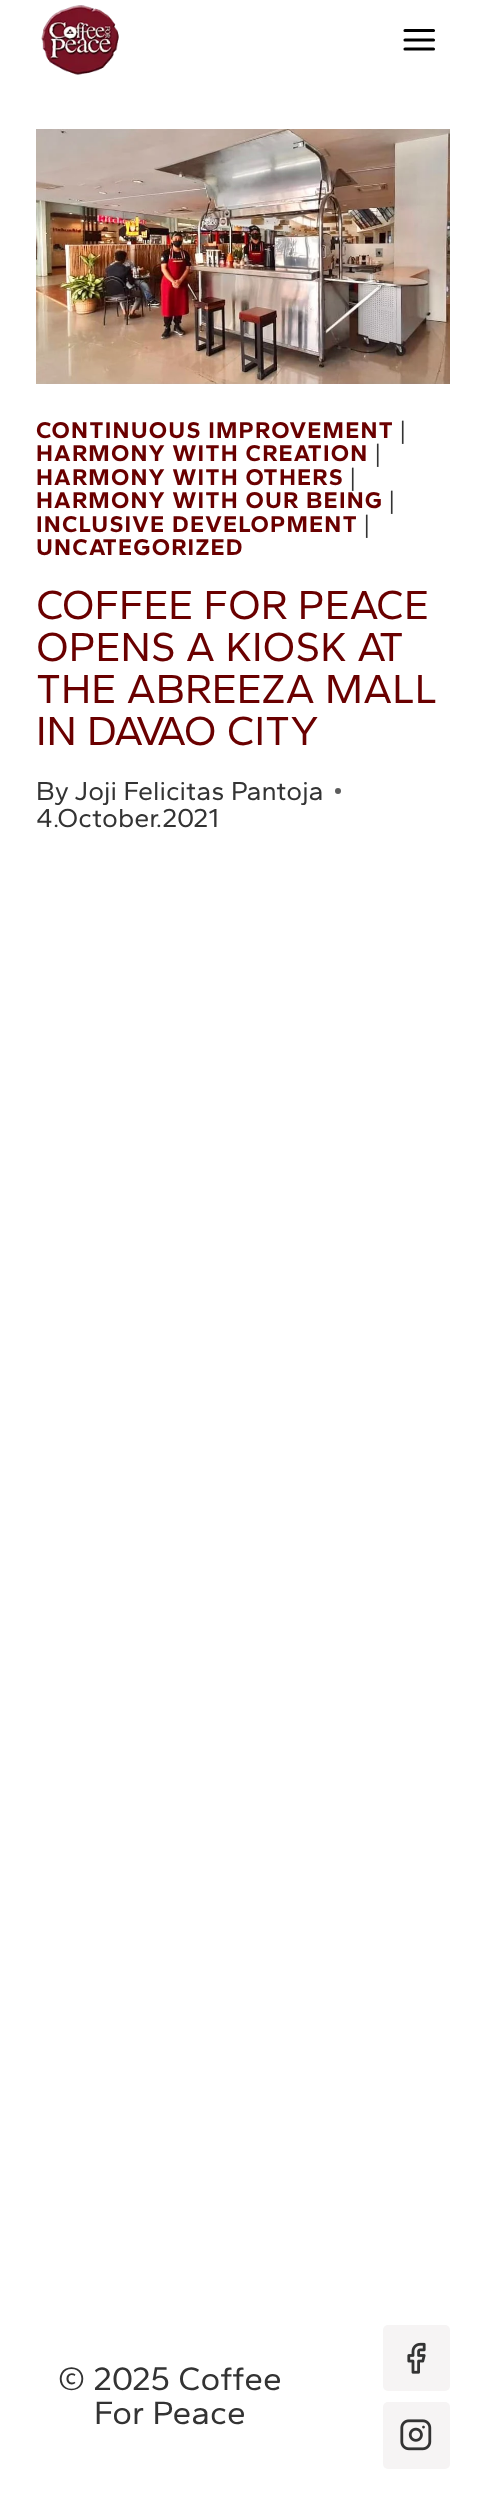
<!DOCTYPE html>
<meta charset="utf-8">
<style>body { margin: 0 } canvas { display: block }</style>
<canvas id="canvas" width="485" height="2513"></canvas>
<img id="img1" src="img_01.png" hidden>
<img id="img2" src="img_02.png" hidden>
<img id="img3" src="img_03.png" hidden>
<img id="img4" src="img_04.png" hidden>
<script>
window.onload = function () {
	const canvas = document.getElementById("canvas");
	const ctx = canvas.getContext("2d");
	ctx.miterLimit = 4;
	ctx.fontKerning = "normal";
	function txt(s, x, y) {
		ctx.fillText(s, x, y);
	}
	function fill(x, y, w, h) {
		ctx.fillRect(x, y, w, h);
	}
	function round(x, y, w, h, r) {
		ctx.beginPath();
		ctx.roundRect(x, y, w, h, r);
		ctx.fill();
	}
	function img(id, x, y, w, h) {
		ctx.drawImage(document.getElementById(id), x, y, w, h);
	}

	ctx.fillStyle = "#FFFFFF";
	fill(0, 0, 485, 2513);
	img("img1", 41, 5, 78, 70);
	ctx.beginPath();
	ctx.moveTo(405, 40);
	ctx.lineTo(433.5, 40);
	ctx.moveTo(405, 30.5);
	ctx.lineTo(433.5, 30.5);
	ctx.moveTo(405, 49);
	ctx.lineTo(433.5, 49);
	ctx.strokeStyle = "#000000";
	ctx.lineWidth = 3.1;
	ctx.lineCap = "round";
	ctx.lineJoin = "round";
	ctx.stroke();
	img("img2", 36, 129, 414, 255);
	ctx.fillStyle = "#5C5C5C";
	ctx.beginPath();
	ctx.arc(338, 791, 3, 0, Math.PI * 2);
	ctx.fill();
	ctx.fillStyle = "#F6F4F4";
	round(383, 2325, 67, 66, 5);
	img("img3", 407, 2342, 19, 32);
	round(383, 2402, 67, 67, 5);
	img("img4", 400, 2419, 32, 32);
	ctx.letterSpacing = "1.2px";
	ctx.font = "bold 23.5px Gantari";
	ctx.fillStyle = "#6A0000";
	txt("CONTINUOUS IMPROVEMENT", 36, 438);
	ctx.font = "23.5px Gantari";
	ctx.fillStyle = "#333333";
	txt("|", 400, 438);
	ctx.font = "bold 23.5px Gantari";
	ctx.fillStyle = "#6A0000";
	txt("HARMONY WITH CREATION", 36, 461);
	ctx.font = "23.5px Gantari";
	ctx.fillStyle = "#333333";
	txt("|", 375, 461);
	ctx.font = "bold 23.5px Gantari";
	ctx.fillStyle = "#6A0000";
	txt("HARMONY WITH OTHERS", 36, 485);
	ctx.font = "23.5px Gantari";
	ctx.fillStyle = "#333333";
	txt("|", 350, 485);
	ctx.font = "bold 23.5px Gantari";
	ctx.fillStyle = "#6A0000";
	txt("HARMONY WITH OUR BEING", 36, 508);
	ctx.font = "23.5px Gantari";
	ctx.fillStyle = "#333333";
	txt("|", 389, 508);
	ctx.font = "bold 23.5px Gantari";
	ctx.fillStyle = "#6A0000";
	txt("INCLUSIVE DEVELOPMENT", 36, 532);
	ctx.font = "23.5px Gantari";
	ctx.fillStyle = "#333333";
	txt("|", 364, 532);
	ctx.font = "bold 23.5px Gantari";
	ctx.fillStyle = "#6A0000";
	txt("UNCATEGORIZED", 36, 555);
	ctx.letterSpacing = "0px";
	ctx.font = "42px Gantari";
	txt("COFFEE FOR PEACE", 36, 619);
	txt("OPENS A KIOSK AT", 36, 661);
	txt("THE ABREEZA MALL", 36, 703);
	txt("IN DAVAO CITY", 36, 745);
	ctx.font = "26.9px Gantari";
	ctx.fillStyle = "#333333";
	txt("By", 36, 800);
	txt("Joji Felicitas Pantoja", 74, 800);
	txt("4.October.2021", 36, 827);
	ctx.font = "33.5px Gantari";
	txt("© 2025 Coffee", 58, 2390);
	txt("For Peace", 94, 2424);
};
</script>
